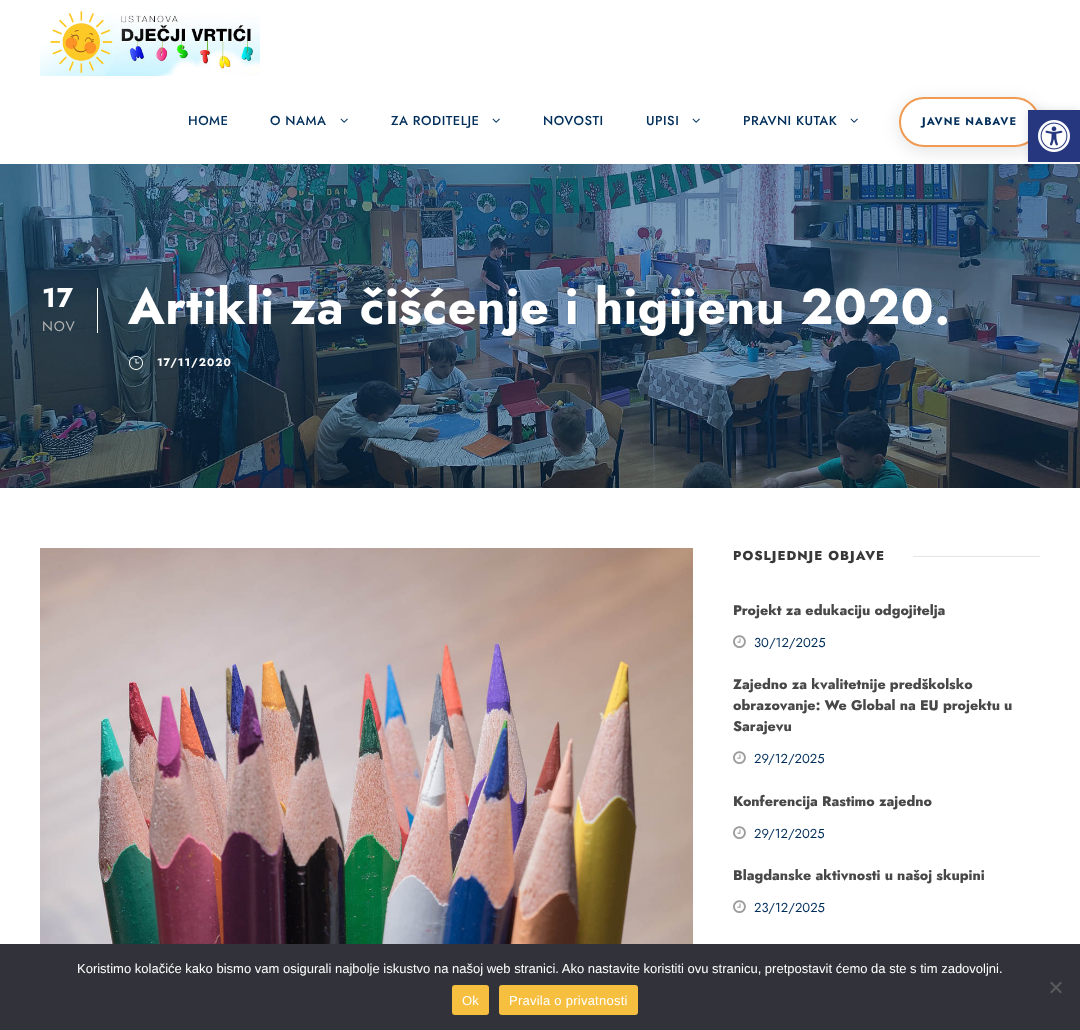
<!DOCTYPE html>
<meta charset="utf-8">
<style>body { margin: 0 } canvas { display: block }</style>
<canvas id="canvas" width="1080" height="1030"></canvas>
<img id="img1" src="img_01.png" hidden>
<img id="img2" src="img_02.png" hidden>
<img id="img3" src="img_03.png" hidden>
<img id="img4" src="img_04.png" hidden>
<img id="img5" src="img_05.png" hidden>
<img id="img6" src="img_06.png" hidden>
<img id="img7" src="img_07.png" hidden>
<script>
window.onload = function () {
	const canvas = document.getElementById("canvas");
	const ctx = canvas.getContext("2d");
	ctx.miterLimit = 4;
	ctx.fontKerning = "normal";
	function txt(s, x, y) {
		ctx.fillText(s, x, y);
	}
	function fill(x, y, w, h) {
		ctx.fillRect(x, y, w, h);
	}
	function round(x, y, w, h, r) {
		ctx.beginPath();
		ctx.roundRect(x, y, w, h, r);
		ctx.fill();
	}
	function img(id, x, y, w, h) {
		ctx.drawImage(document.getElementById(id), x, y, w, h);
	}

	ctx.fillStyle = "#FFFFFF";
	fill(0, 0, 1080, 1030);
	img("img1", 40, 11, 220, 65);
	img("img2", 340, 118, 8, 5);
	img("img2", 492, 118, 8, 5);
	img("img2", 692, 118, 8, 5);
	img("img2", 850, 118, 8, 5);
	img("img3", 0, 164, 1080, 324);
	ctx.fillStyle = "rgba(10, 0, 0, 0.11)";
	ctx.filter = "blur(9px)";
	ctx.beginPath();
	ctx.roundRect(899, 101, 141, 50, 25);
	ctx.fill();
	ctx.filter = "none";
	ctx.fillStyle = "#FFFFFF";
	ctx.beginPath();
	ctx.roundRect(900, 98, 139, 48, 24);
	ctx.fill();
	ctx.strokeStyle = "#F09A52";
	ctx.lineWidth = 2;
	ctx.stroke();
	fill(97, 288, 1, 45);
	img("img4", 129, 355, 14, 15);
	img("img5", 40, 548, 653, 396);
	ctx.fillStyle = "#E6E6E6";
	fill(913, 556, 127, 1);
	img("img6", 733, 635, 13, 13);
	img("img6", 733, 751, 13, 13);
	img("img6", 733, 826, 13, 13);
	img("img6", 733, 900, 13, 13);
	ctx.fillStyle = "rgba(0, 0, 0, 0.1)";
	ctx.filter = "blur(5px)";
	ctx.beginPath();
	ctx.rect(1028, 110, 52, 52);
	ctx.fill();
	ctx.filter = "none";
	ctx.fillStyle = "#26377F";
	fill(1028, 110, 52, 52);
	img("img7", 1038, 120, 32, 32);
	ctx.fillStyle = "#32323A";
	fill(0, 944, 1080, 86);
	ctx.fillStyle = "#59595D";
	ctx.beginPath();
	ctx.moveTo(1060.5, 981.5);
	ctx.lineTo(1062, 983);
	ctx.lineTo(1051.5, 993.5);
	ctx.lineTo(1050, 992);
	ctx.closePath();
	ctx.fill();
	ctx.beginPath();
	ctx.moveTo(1050, 983);
	ctx.lineTo(1051.5, 981.5);
	ctx.lineTo(1062, 992);
	ctx.lineTo(1060.5, 993.5);
	ctx.closePath();
	ctx.fill();
	ctx.fillStyle = "#F6BF40";
	round(452, 985, 37, 30, 3);
	round(499, 985, 139, 30, 3);
	ctx.letterSpacing = "0.5px";
	ctx.font = "500 13px Jost";
	ctx.fillStyle = "#002E5B";
	txt("HOME", 188, 125);
	txt("O NAMA", 270, 125);
	txt("ZA RODITELJE", 391, 125);
	txt("NOVOSTI", 543, 125);
	txt("UPISI", 646, 125);
	txt("PRAVNI KUTAK", 743, 125);
	ctx.letterSpacing = "1px";
	ctx.font = "bold 11px Jost";
	txt("JAVNE NABAVE", 922, 125);
	ctx.font = "bold 27px Jost";
	ctx.fillStyle = "#FFFFFF";
	txt("17", 42, 307);
	ctx.font = "14px Jost";
	ctx.fillStyle = "#B1B1B1";
	txt("NOV", 42, 331);
	ctx.letterSpacing = "0.5px";
	ctx.font = "bold 50px Jost";
	ctx.fillStyle = "#FFFFFF";
	txt("Artikli za čišćenje i higijenu 2020.", 128, 324);
	ctx.letterSpacing = "1px";
	ctx.font = "bold 11px Jost";
	txt("17/11/2020", 157, 366);
	ctx.font = "800 13px Jost";
	ctx.fillStyle = "#383838";
	txt("POSLJEDNJE OBJAVE", 733, 560);
	ctx.letterSpacing = "0px";
	ctx.font = "800 14px Jost";
	ctx.fillStyle = "#484848";
	txt("Projekt za edukaciju odgojitelja", 733, 615);
	ctx.font = "13px Jost";
	ctx.fillStyle = "#002E5B";
	txt("30/12/2025", 754, 647);
	ctx.font = "800 14px Jost";
	ctx.fillStyle = "#484848";
	txt("Zajedno za kvalitetnije predškolsko", 733, 689);
	txt("obrazovanje: We Global na EU projektu u", 733, 710);
	txt("Sarajevu", 733, 731);
	ctx.font = "13px Jost";
	ctx.fillStyle = "#002E5B";
	txt("29/12/2025", 754, 763);
	ctx.font = "800 14px Jost";
	ctx.fillStyle = "#484848";
	txt("Konferencija Rastimo zajedno", 733, 806);
	ctx.font = "13px Jost";
	ctx.fillStyle = "#002E5B";
	txt("29/12/2025", 754, 838);
	ctx.font = "800 14px Jost";
	ctx.fillStyle = "#484848";
	txt("Blagdanske aktivnosti u našoj skupini", 733, 880);
	ctx.font = "13px Jost";
	ctx.fillStyle = "#002E5B";
	txt("23/12/2025", 754, 912);
	ctx.font = "13px Liberation Sans";
	ctx.fillStyle = "#FFFFFF";
	txt("Koristimo kolačiće kako bismo vam osigurali najbolje iskustvo na našoj web stranici. Ako nastavite koristiti ovu stranicu, pretpostavit ćemo da ste s tim zadovoljni.", 77, 973);
	ctx.letterSpacing = "0.25px";
	txt("Ok", 462, 1005);
	txt("Pravila o privatnosti", 509, 1005);
};
</script>
